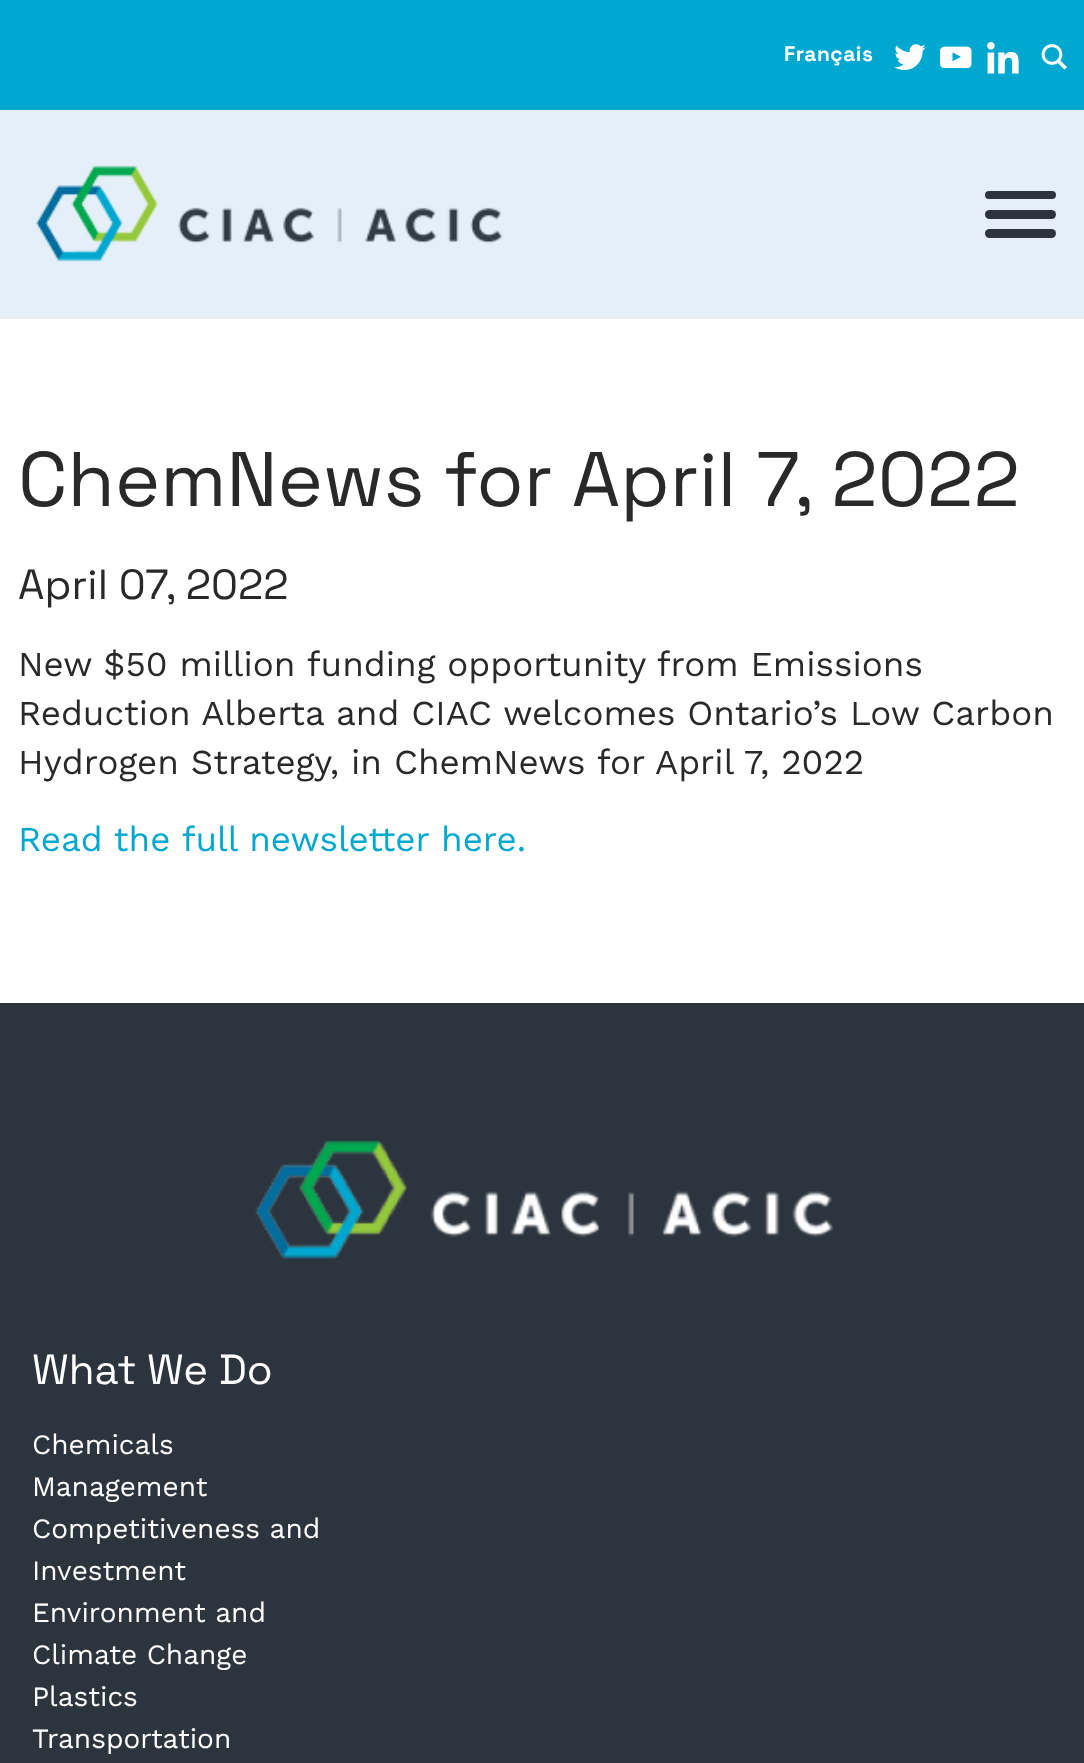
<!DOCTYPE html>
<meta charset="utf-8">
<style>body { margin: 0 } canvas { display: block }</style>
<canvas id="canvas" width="1084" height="1763"></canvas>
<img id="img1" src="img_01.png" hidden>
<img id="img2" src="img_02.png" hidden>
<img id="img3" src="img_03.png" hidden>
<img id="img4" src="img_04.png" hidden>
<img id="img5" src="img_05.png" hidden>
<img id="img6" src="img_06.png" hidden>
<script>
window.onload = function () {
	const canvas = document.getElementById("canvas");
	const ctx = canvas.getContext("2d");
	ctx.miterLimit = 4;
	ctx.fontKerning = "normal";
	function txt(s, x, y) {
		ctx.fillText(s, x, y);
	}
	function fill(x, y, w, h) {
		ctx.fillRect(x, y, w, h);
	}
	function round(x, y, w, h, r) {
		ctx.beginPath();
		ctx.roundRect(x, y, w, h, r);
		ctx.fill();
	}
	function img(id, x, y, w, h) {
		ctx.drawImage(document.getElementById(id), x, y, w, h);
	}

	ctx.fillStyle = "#FFFFFF";
	fill(0, 0, 1084, 1763);
	ctx.fillStyle = "#00A8CF";
	fill(0, 0, 1084, 110);
	img("img1", 894, 44, 32, 26);
	img("img2", 940, 46, 32, 22);
	img("img3", 987, 42, 32, 32);
	img("img4", 1041, 44, 26, 26);
	ctx.fillStyle = "#E5EFF8";
	fill(0, 110, 1084, 209);
	img("img5", 36, 165, 467, 97);
	ctx.fillStyle = "#2C343D";
	round(985, 191, 71, 8, 4);
	round(985, 210, 71, 9, 4.5);
	round(985, 229, 71, 9, 4.5);
	fill(0, 1003, 1084, 760);
	img("img6", 255, 1140, 579, 119);
	ctx.letterSpacing = "0.5px";
	ctx.font = "bold 21px Space Grotesk";
	ctx.fillStyle = "#FFFFFF";
	txt("Français", 784, 61);
	ctx.letterSpacing = "0px";
	ctx.font = "77px Space Grotesk";
	ctx.fillStyle = "#292929";
	txt("ChemNews for April 7, 2022", 18, 506);
	ctx.font = "42px Space Grotesk";
	txt("April 07, 2022", 18, 599);
	ctx.font = "35px Work Sans";
	txt("New $50 million funding opportunity from Emissions", 18, 676);
	txt("Reduction Alberta and CIAC welcomes Ontario’s Low Carbon", 18, 725);
	txt("Hydrogen Strategy, in ChemNews for April 7, 2022", 18, 774);
	ctx.fillStyle = "#00A8CF";
	txt("Read the full newsletter here.", 18, 851);
	ctx.font = "42px Space Grotesk";
	ctx.fillStyle = "#FFFFFF";
	txt("What We Do", 32, 1384);
	ctx.font = "28px Work Sans";
	txt("Chemicals", 32, 1454);
	txt("Management", 32, 1496);
	txt("Competitiveness and", 32, 1538);
	txt("Investment", 32, 1580);
	txt("Environment and", 32, 1622);
	txt("Climate Change", 32, 1664);
	txt("Plastics", 32, 1706);
	txt("Transportation", 32, 1748);
};
</script>
